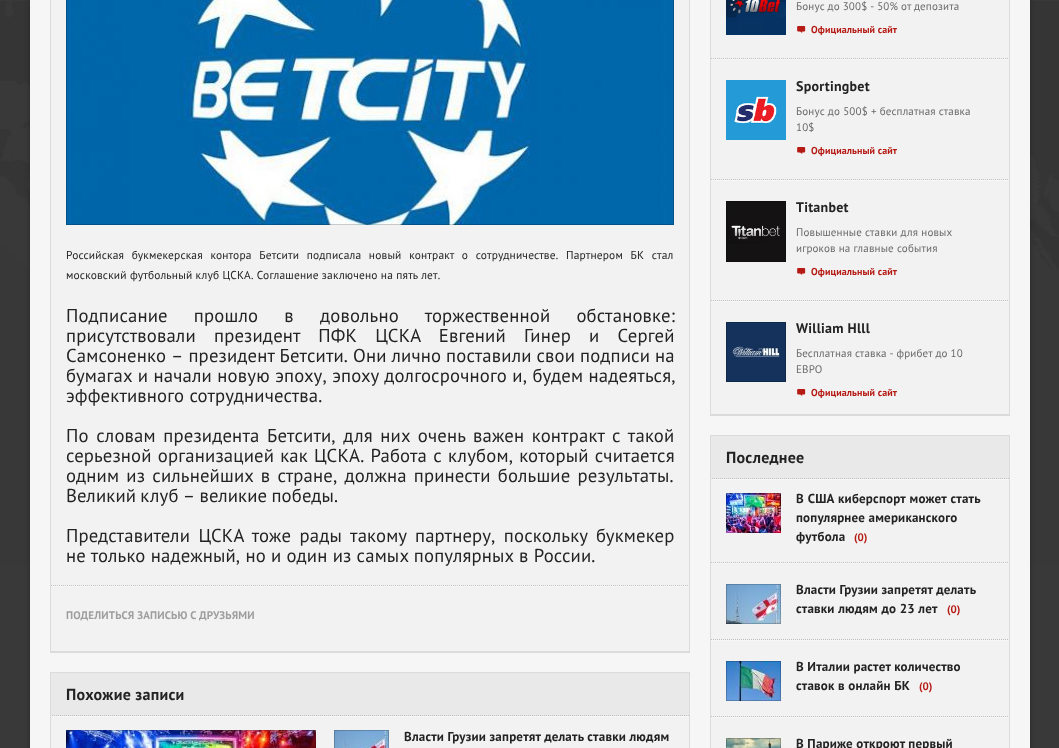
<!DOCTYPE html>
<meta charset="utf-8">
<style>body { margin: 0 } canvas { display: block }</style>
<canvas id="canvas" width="1059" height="748"></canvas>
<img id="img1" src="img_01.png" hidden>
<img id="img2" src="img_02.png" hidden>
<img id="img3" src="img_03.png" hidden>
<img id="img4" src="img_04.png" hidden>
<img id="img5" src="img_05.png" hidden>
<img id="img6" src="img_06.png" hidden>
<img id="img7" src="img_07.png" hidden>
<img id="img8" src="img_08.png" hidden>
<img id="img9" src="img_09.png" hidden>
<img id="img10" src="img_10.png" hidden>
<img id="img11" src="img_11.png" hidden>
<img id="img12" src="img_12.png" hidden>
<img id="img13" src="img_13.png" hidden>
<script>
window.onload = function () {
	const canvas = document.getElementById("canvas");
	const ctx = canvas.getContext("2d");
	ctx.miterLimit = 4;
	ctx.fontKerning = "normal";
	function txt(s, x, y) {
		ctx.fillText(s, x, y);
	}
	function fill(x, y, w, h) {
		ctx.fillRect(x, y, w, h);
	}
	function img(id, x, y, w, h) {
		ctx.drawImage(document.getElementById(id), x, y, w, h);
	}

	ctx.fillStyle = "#393939";
	fill(0, 0, 1059, 748);
	img("img1", 0, 1, 1059, 564);
	ctx.fillStyle = "rgba(0, 0, 0, 0.3)";
	ctx.filter = "blur(2.5px)";
	ctx.beginPath();
	ctx.rect(30, -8, 1000, 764);
	ctx.fill();
	ctx.filter = "none";
	ctx.fillStyle = "#F6F6F6";
	fill(30, 0, 1000, 748);
	ctx.fillStyle = "#DBDBDB";
	fill(50, 652, 640, 1);
	ctx.fillStyle = "#F2F2F2";
	fill(51, 0, 638, 651);
	ctx.fillStyle = "#DBDBDB";
	fill(689, 0, 1, 652);
	fill(50, 651, 640, 1);
	fill(50, 0, 1, 652);
	img("img2", 66, 0, 608, 225);
	ctx.strokeStyle = "rgba(0, 0, 0, 0.2)";
	ctx.strokeRect(66.5, -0.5, 607, 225);
	ctx.beginPath();
	ctx.moveTo(51, 585.5);
	ctx.lineTo(689, 585.5);
	ctx.strokeStyle = "#C0C0C0";
	ctx.setLineDash([1, 1]);
	ctx.stroke();
	ctx.beginPath();
	ctx.moveTo(51, 586.5);
	ctx.lineTo(689, 586.5);
	ctx.strokeStyle = "#FBFBFB";
	ctx.stroke();
	ctx.fillStyle = "#E9E9E9";
	fill(51, 673, 638, 43);
	ctx.fillStyle = "#DBDBDB";
	fill(50, 672, 640, 1);
	fill(689, 672, 1, 76);
	ctx.beginPath();
	ctx.moveTo(50, 715.5);
	ctx.lineTo(690, 715.5);
	ctx.strokeStyle = "#C0C0C0";
	ctx.stroke();
	fill(50, 672, 1, 44);
	ctx.fillStyle = "#F2F2F2";
	fill(51, 716, 638, 32);
	ctx.beginPath();
	ctx.moveTo(50, 716.5);
	ctx.lineTo(690, 716.5);
	ctx.strokeStyle = "#FBFBFB";
	ctx.stroke();
	ctx.fillStyle = "#DBDBDB";
	fill(50, 716, 1, 32);
	img("img3", 66, 730, 250, 18);
	ctx.strokeStyle = "rgba(0, 0, 0, 0.2)";
	ctx.setLineDash([]);
	ctx.strokeRect(66.5, 730.5, 249, 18);
	img("img4", 334, 730, 55, 18);
	ctx.strokeRect(334.5, 730.5, 54, 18);
	fill(710, 415, 300, 1);
	ctx.fillStyle = "#F2F2F2";
	fill(711, 0, 298, 414);
	ctx.fillStyle = "#DBDBDB";
	fill(1009, 0, 1, 415);
	fill(710, 414, 300, 1);
	fill(710, 0, 1, 415);
	img("img5", 726, 0, 60, 35);
	img("img6", 797, 26, 9, 7);
	ctx.beginPath();
	ctx.moveTo(711, 58.5);
	ctx.lineTo(1009, 58.5);
	ctx.strokeStyle = "#C0C0C0";
	ctx.setLineDash([1, 1]);
	ctx.stroke();
	ctx.beginPath();
	ctx.moveTo(711, 59.5);
	ctx.lineTo(1009, 59.5);
	ctx.strokeStyle = "#FBFBFB";
	ctx.stroke();
	img("img7", 726, 80, 60, 60);
	img("img6", 797, 147, 9, 7);
	ctx.beginPath();
	ctx.moveTo(711, 179.5);
	ctx.lineTo(1009, 179.5);
	ctx.strokeStyle = "#C0C0C0";
	ctx.stroke();
	ctx.beginPath();
	ctx.moveTo(711, 180.5);
	ctx.lineTo(1009, 180.5);
	ctx.strokeStyle = "#FBFBFB";
	ctx.stroke();
	img("img8", 726, 201, 60, 61);
	ctx.strokeStyle = "rgba(0, 0, 0, 0.2)";
	ctx.setLineDash([]);
	ctx.strokeRect(726.5, 201.5, 59, 60);
	img("img6", 797, 268, 9, 7);
	ctx.beginPath();
	ctx.moveTo(711, 300.5);
	ctx.lineTo(1009, 300.5);
	ctx.strokeStyle = "#C0C0C0";
	ctx.setLineDash([1, 1]);
	ctx.stroke();
	ctx.beginPath();
	ctx.moveTo(711, 301.5);
	ctx.lineTo(1009, 301.5);
	ctx.strokeStyle = "#FBFBFB";
	ctx.stroke();
	img("img9", 726, 322, 60, 60);
	ctx.strokeStyle = "rgba(0, 0, 0, 0.2)";
	ctx.setLineDash([]);
	ctx.strokeRect(726.5, 322.5, 59, 59);
	img("img6", 797, 389, 9, 7);
	ctx.fillStyle = "#E9E9E9";
	fill(711, 436, 298, 43);
	ctx.fillStyle = "#DBDBDB";
	fill(710, 435, 300, 1);
	fill(1009, 435, 1, 313);
	ctx.beginPath();
	ctx.moveTo(710, 478.5);
	ctx.lineTo(1010, 478.5);
	ctx.strokeStyle = "#C0C0C0";
	ctx.setLineDash([1, 1]);
	ctx.stroke();
	fill(710, 435, 1, 44);
	ctx.fillStyle = "#F2F2F2";
	fill(711, 479, 298, 269);
	ctx.beginPath();
	ctx.moveTo(710, 479.5);
	ctx.lineTo(1010, 479.5);
	ctx.strokeStyle = "#FBFBFB";
	ctx.stroke();
	ctx.fillStyle = "#DBDBDB";
	fill(710, 479, 1, 269);
	img("img10", 726, 493, 55, 40);
	ctx.strokeStyle = "rgba(0, 0, 0, 0.2)";
	ctx.setLineDash([]);
	ctx.strokeRect(726.5, 493.5, 54, 39);
	ctx.beginPath();
	ctx.moveTo(711, 562.5);
	ctx.lineTo(1009, 562.5);
	ctx.strokeStyle = "#C0C0C0";
	ctx.setLineDash([1, 1]);
	ctx.stroke();
	ctx.beginPath();
	ctx.moveTo(711, 563.5);
	ctx.lineTo(1009, 563.5);
	ctx.strokeStyle = "#FBFBFB";
	ctx.stroke();
	img("img11", 726, 584, 55, 40);
	ctx.strokeStyle = "rgba(0, 0, 0, 0.2)";
	ctx.setLineDash([]);
	ctx.strokeRect(726.5, 584.5, 54, 39);
	ctx.beginPath();
	ctx.moveTo(711, 639.5);
	ctx.lineTo(1009, 639.5);
	ctx.strokeStyle = "#C0C0C0";
	ctx.setLineDash([1, 1]);
	ctx.stroke();
	ctx.beginPath();
	ctx.moveTo(711, 640.5);
	ctx.lineTo(1009, 640.5);
	ctx.strokeStyle = "#FBFBFB";
	ctx.stroke();
	img("img12", 726, 661, 55, 40);
	ctx.strokeStyle = "rgba(0, 0, 0, 0.2)";
	ctx.setLineDash([]);
	ctx.strokeRect(726.5, 661.5, 54, 39);
	ctx.beginPath();
	ctx.moveTo(711, 716.5);
	ctx.lineTo(1009, 716.5);
	ctx.strokeStyle = "#C0C0C0";
	ctx.setLineDash([1, 1]);
	ctx.stroke();
	ctx.beginPath();
	ctx.moveTo(711, 717.5);
	ctx.lineTo(1009, 717.5);
	ctx.strokeStyle = "#FBFBFB";
	ctx.stroke();
	img("img13", 726, 738, 55, 10);
	ctx.strokeStyle = "rgba(0, 0, 0, 0.2)";
	ctx.setLineDash([]);
	ctx.strokeRect(726.5, 738.5, 54, 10);
	ctx.letterSpacing = "0.17px";
	ctx.wordSpacing = "4.4px";
	ctx.font = "11.45px PT Sans";
	ctx.fillStyle = "#232323";
	txt("Российская букмекерская контора Бетсити подписала новый контракт о сотрудничестве. Партнером БК стал", 66, 259);
	ctx.wordSpacing = "0px";
	txt("московский футбольный клуб ЦСКА. Соглашение заключено на пять лет.", 66, 279);
	ctx.wordSpacing = "21px";
	ctx.font = "18.7px PT Sans";
	txt("Подписание прошло в довольно торжественной обстановке:", 66, 322);
	ctx.wordSpacing = "13px";
	txt("присутствовали президент ПФК ЦСКА Евгений Гинер и Сергей", 66, 342);
	ctx.wordSpacing = "-0.25px";
	txt("Самсоненко – президент Бетсити. Они лично поставили свои подписи на", 66, 362);
	ctx.wordSpacing = "0.25px";
	txt("бумагах и начали новую эпоху, эпоху долгосрочного и, будем надеяться,", 66, 382);
	ctx.wordSpacing = "0px";
	txt("эффективного сотрудничества.", 66, 402);
	ctx.wordSpacing = "2.4px";
	txt("По словам президента Бетсити, для них очень важен контракт с такой", 66, 442);
	ctx.wordSpacing = "1px";
	txt("серьезной организацией как ЦСКА. Работа с клубом, который считается", 66, 462);
	ctx.wordSpacing = "2px";
	txt("одним из сильнейших в стране, должна принести большие результаты.", 66, 482);
	ctx.wordSpacing = "-1px";
	txt("Великий клуб – великие победы.", 66, 502);
	ctx.wordSpacing = "3.25px";
	txt("Представители ЦСКА тоже рады такому партнеру, поскольку букмекер", 66, 542);
	ctx.wordSpacing = "0px";
	txt("не только надежный, но и один из самых популярных в России.", 66, 562);
	ctx.font = "bold 11px PT Sans";
	ctx.fillStyle = "#9E9E9E";
	txt("ПОДЕЛИТЬСЯ ЗАПИСЬЮ С ДРУЗЬЯМИ", 66, 619);
	ctx.letterSpacing = "0.25px";
	ctx.font = "bold 16px PT Sans";
	ctx.fillStyle = "#232323";
	txt("Похожие записи", 66, 700);
	ctx.letterSpacing = "0.2px";
	ctx.font = "bold 13px PT Sans";
	txt("Власти Грузии запретят делать ставки людям", 404, 741);
	ctx.letterSpacing = "0.17px";
	ctx.wordSpacing = "-0.25px";
	ctx.font = "11px PT Sans";
	ctx.fillStyle = "#6A6A6A";
	txt("Бонус до 300$ - 50% от депозита", 796, 10);
	ctx.letterSpacing = "0.1px";
	ctx.wordSpacing = "0px";
	ctx.font = "bold 10px PT Sans";
	ctx.fillStyle = "#B51B14";
	txt("Официальный сайт", 811, 33);
	ctx.letterSpacing = "0.25px";
	ctx.font = "bold 14px PT Sans";
	ctx.fillStyle = "#232323";
	txt("Sportingbet", 796, 91);
	ctx.letterSpacing = "0.17px";
	ctx.font = "11px PT Sans";
	ctx.fillStyle = "#6A6A6A";
	txt("Бонус до 500$ + бесплатная ставка", 796, 115);
	txt("10$", 796, 131);
	ctx.letterSpacing = "0.1px";
	ctx.font = "bold 10px PT Sans";
	ctx.fillStyle = "#B51B14";
	txt("Официальный сайт", 811, 154);
	ctx.letterSpacing = "0.25px";
	ctx.font = "bold 14px PT Sans";
	ctx.fillStyle = "#232323";
	txt("Titanbet", 796, 212);
	ctx.letterSpacing = "0.17px";
	ctx.font = "11px PT Sans";
	ctx.fillStyle = "#6A6A6A";
	txt("Повышенные ставки для новых", 796, 236);
	txt("игроков на главные события", 796, 252);
	ctx.letterSpacing = "0.1px";
	ctx.font = "bold 10px PT Sans";
	ctx.fillStyle = "#B51B14";
	txt("Официальный сайт", 811, 275);
	ctx.letterSpacing = "0.25px";
	ctx.font = "bold 14px PT Sans";
	ctx.fillStyle = "#232323";
	txt("William Hlll", 796, 333);
	ctx.letterSpacing = "0.17px";
	ctx.wordSpacing = "-0.25px";
	ctx.font = "11px PT Sans";
	ctx.fillStyle = "#6A6A6A";
	txt("Бесплатная ставка - фрибет до 10", 796, 357);
	ctx.wordSpacing = "0px";
	txt("ЕВРО", 796, 373);
	ctx.letterSpacing = "0.1px";
	ctx.font = "bold 10px PT Sans";
	ctx.fillStyle = "#B51B14";
	txt("Официальный сайт", 811, 396);
	ctx.letterSpacing = "0.25px";
	ctx.font = "bold 16px PT Sans";
	ctx.fillStyle = "#232323";
	txt("Последнее", 726, 463);
	ctx.letterSpacing = "0.2px";
	ctx.wordSpacing = "0.5px";
	ctx.font = "bold 13px PT Sans";
	txt("В США киберспорт может стать", 796, 503);
	ctx.wordSpacing = "0px";
	txt("популярнее американского", 796, 522);
	txt("футбола", 796, 541);
	ctx.letterSpacing = "0px";
	ctx.font = "bold 11px PT Sans";
	ctx.fillStyle = "#B51B14";
	txt("(0)", 854, 541);
	ctx.letterSpacing = "0.2px";
	ctx.font = "bold 13px PT Sans";
	ctx.fillStyle = "#232323";
	txt("Власти Грузии запретят делать", 796, 594);
	txt("ставки людям до 23 лет", 796, 613);
	ctx.letterSpacing = "0px";
	ctx.font = "bold 11px PT Sans";
	ctx.fillStyle = "#B51B14";
	txt("(0)", 947, 613);
	ctx.letterSpacing = "0.2px";
	ctx.font = "bold 13px PT Sans";
	ctx.fillStyle = "#232323";
	txt("В Италии растет количество", 796, 671);
	txt("ставок в онлайн БК", 796, 690);
	ctx.letterSpacing = "0px";
	ctx.font = "bold 11px PT Sans";
	ctx.fillStyle = "#B51B14";
	txt("(0)", 919, 690);
	ctx.letterSpacing = "0.2px";
	ctx.font = "bold 13px PT Sans";
	ctx.fillStyle = "#232323";
	txt("В Париже откроют первый", 796, 748);
};
</script>
